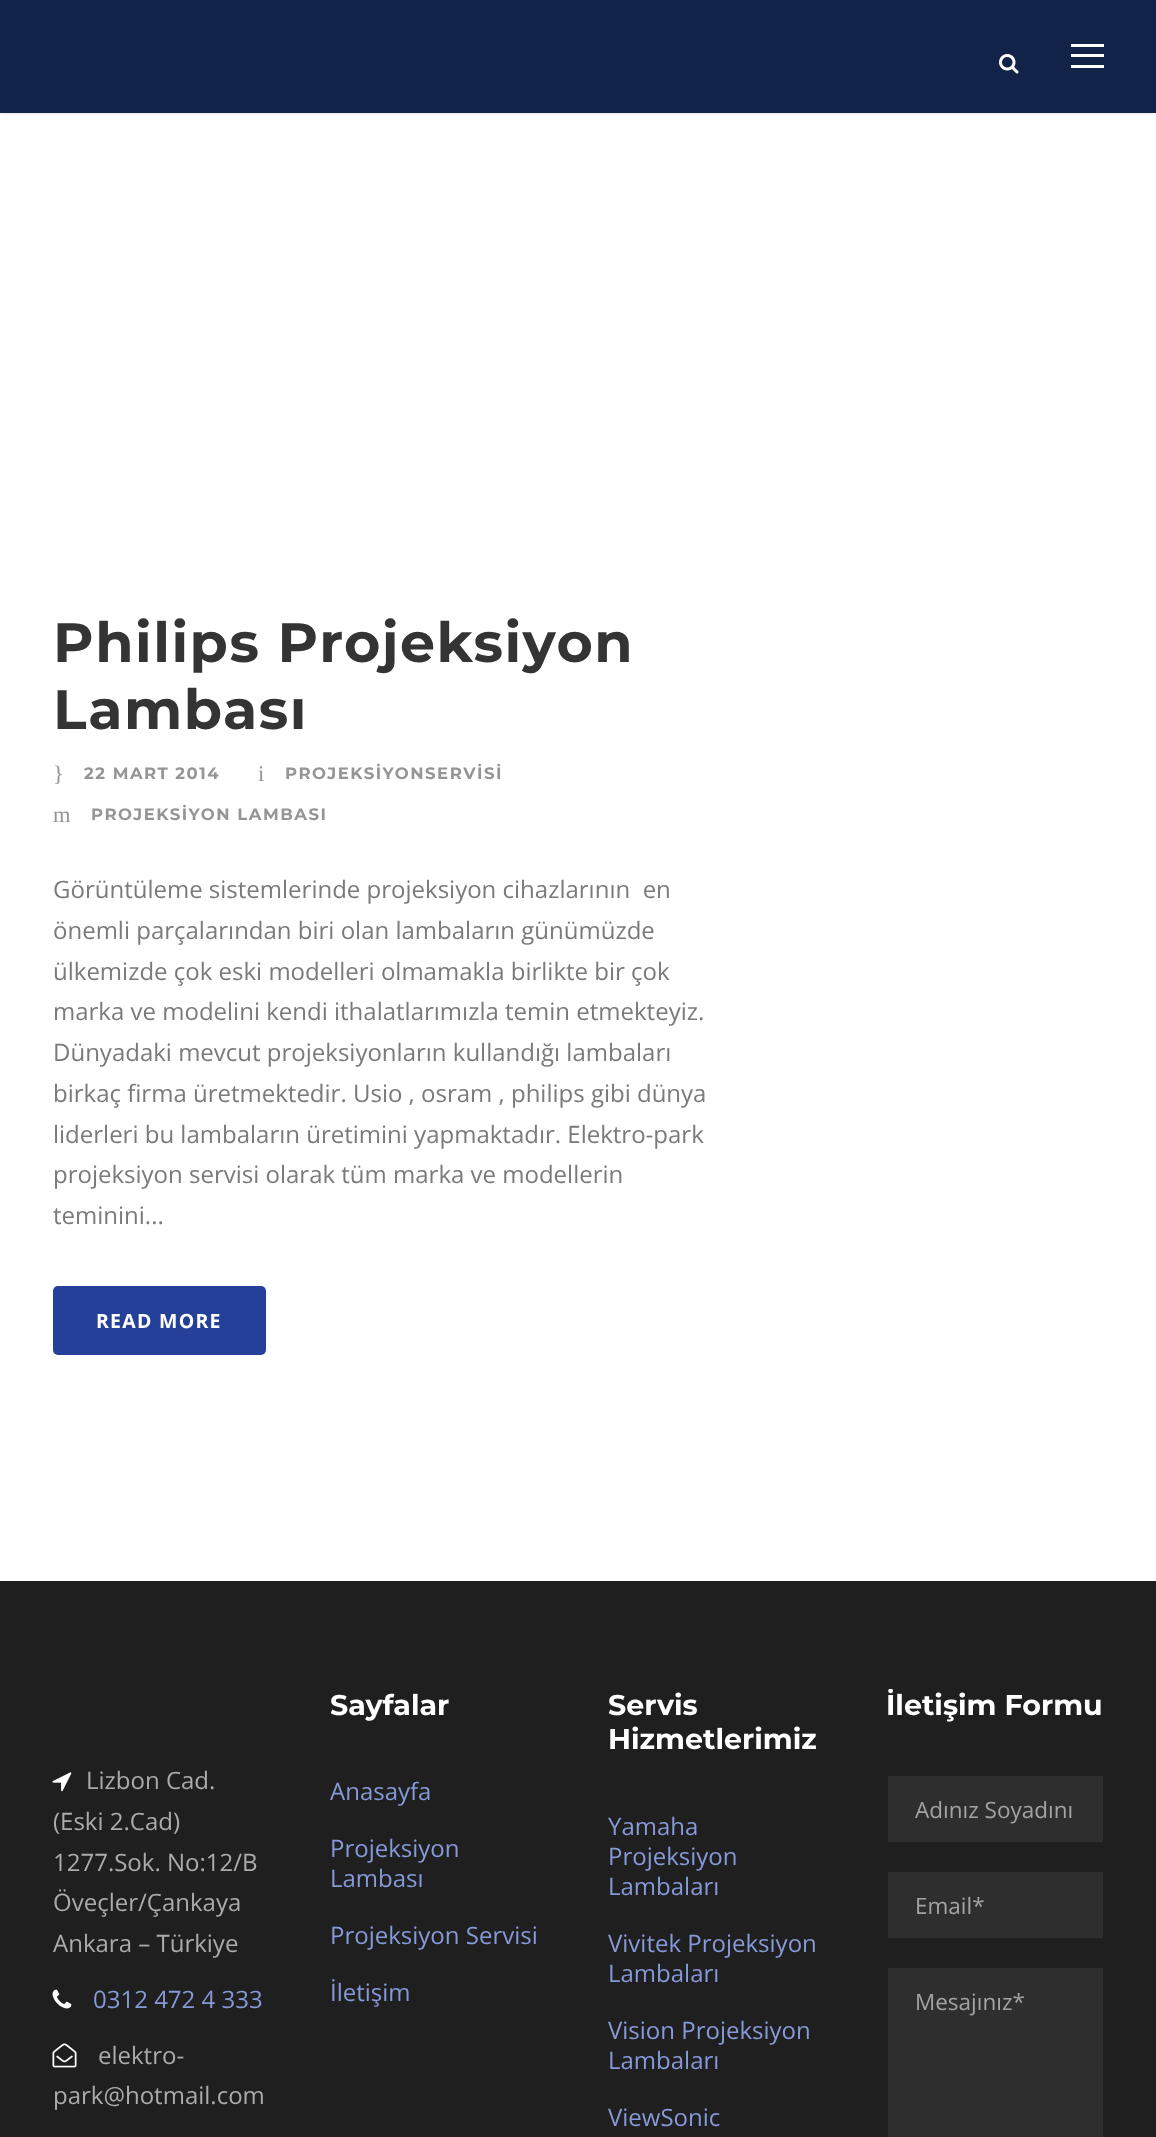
<!DOCTYPE html>
<meta charset="utf-8">
<style>body { margin: 0 } canvas { display: block }</style>
<canvas id="canvas" width="1156" height="2137"></canvas>
<img id="img1" src="img_01.png" hidden>
<img id="img2" src="img_02.png" hidden>
<img id="img3" src="img_03.png" hidden>
<img id="img4" src="img_04.png" hidden>
<script>
window.onload = function () {
	const canvas = document.getElementById("canvas");
	const ctx = canvas.getContext("2d");
	ctx.miterLimit = 4;
	ctx.fontKerning = "normal";
	function txt(s, x, y) {
		ctx.fillText(s, x, y);
	}
	function fill(x, y, w, h) {
		ctx.fillRect(x, y, w, h);
	}
	function round(x, y, w, h, r) {
		ctx.beginPath();
		ctx.roundRect(x, y, w, h, r);
		ctx.fill();
	}
	function img(id, x, y, w, h) {
		ctx.drawImage(document.getElementById(id), x, y, w, h);
	}

	ctx.fillStyle = "#FFFFFF";
	fill(0, 0, 1156, 2137);
	ctx.fillStyle = "rgba(0, 0, 0, 0.1)";
	ctx.filter = "blur(1.5px)";
	ctx.beginPath();
	ctx.rect(0, 2, 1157, 112);
	ctx.fill();
	ctx.filter = "none";
	ctx.fillStyle = "#112349";
	fill(0, 0, 1156, 113);
	img("img1", 999, 54, 20, 20);
	ctx.fillStyle = "#FFFFFF";
	fill(1071, 44, 33, 3);
	fill(1071, 54, 33, 3);
	fill(1071, 65, 33, 3);
	ctx.fillStyle = "#254099";
	round(53, 1286, 213, 69, 5);
	ctx.fillStyle = "#1F1F1F";
	fill(0, 1581, 1156, 556);
	img("img2", 52, 1772, 20, 20);
	img("img3", 52, 1989, 20, 20);
	img("img4", 52, 2043, 25, 25);
	ctx.fillStyle = "#2E2E2E";
	fill(888, 1776, 215, 66);
	fill(888, 1872, 215, 66);
	fill(888, 1968, 215, 169);
	ctx.letterSpacing = "1.5px";
	ctx.font = "bold 55.5px Montserrat";
	ctx.fillStyle = "#343434";
	txt("Philips Projeksiyon", 53, 662);
	txt("Lambası", 53, 729);
	ctx.font = "22.5px Liberation Serif";
	ctx.fillStyle = "#959595";
	txt("}", 53, 781);
	ctx.font = "bold 16.5px Montserrat";
	txt("22 MART 2014", 84, 779);
	ctx.font = "22.5px Liberation Serif";
	txt("i", 258, 781);
	ctx.font = "bold 16.5px Montserrat";
	txt("PROJEKSİYONSERVİSİ", 285, 779);
	ctx.font = "22.5px Liberation Serif";
	txt("m", 53, 822);
	ctx.font = "bold 16.5px Montserrat";
	txt("PROJEKSİYON LAMBASI", 91, 820);
	ctx.letterSpacing = "0px";
	ctx.font = "24px Open Sans";
	ctx.fillStyle = "#7A7A7A";
	txt("Görüntüleme sistemlerinde projeksiyon cihazlarının  en", 53, 898);
	txt("önemli parçalarından biri olan lambaların günümüzde", 53, 939);
	txt("ülkemizde çok eski modelleri olmamakla birlikte bir çok", 53, 980);
	txt("marka ve modelini kendi ithalatlarımızla temin etmekteyiz.", 53, 1020);
	txt("Dünyadaki mevcut projeksiyonların kullandığı lambaları", 53, 1061);
	txt("birkaç firma üretmektedir. Usio , osram , philips gibi dünya", 53, 1102);
	txt("liderleri bu lambaların üretimini yapmaktadır. Elektro-park", 53, 1143);
	txt("projeksiyon servisi olarak tüm marka ve modellerin", 53, 1183);
	txt("teminini...", 53, 1224);
	ctx.letterSpacing = "1.25px";
	ctx.font = "bold 19.5px Open Sans";
	ctx.fillStyle = "#FFFFFF";
	txt("READ MORE", 96, 1328);
	ctx.letterSpacing = "0px";
	ctx.font = "24px Open Sans";
	ctx.fillStyle = "#ABABAB";
	txt("Lizbon Cad.", 86, 1789);
	txt("(Eski 2.Cad)", 53, 1830);
	txt("1277.Sok. No:12/B", 53, 1871);
	txt("Öveçler/Çankaya", 53, 1911);
	txt("Ankara – Türkiye", 53, 1952);
	ctx.fillStyle = "#8699D8";
	txt("0312 472 4 333", 93, 2008);
	ctx.fillStyle = "#ABABAB";
	txt("elektro-", 98, 2064);
	txt("park@hotmail.com", 53, 2104);
	ctx.font = "bold 28.5px Montserrat";
	ctx.fillStyle = "#FFFFFF";
	txt("Sayfalar", 330, 1715);
	ctx.font = "24px Open Sans";
	ctx.fillStyle = "#8699D8";
	txt("Anasayfa", 330, 1800);
	txt("Projeksiyon", 330, 1857);
	txt("Lambası", 330, 1887);
	txt("Projeksiyon Servisi", 330, 1944);
	txt("İletişim", 330, 2001);
	ctx.font = "bold 28.5px Montserrat";
	ctx.fillStyle = "#FFFFFF";
	txt("Servis", 608, 1715);
	txt("Hizmetlerimiz", 608, 1749);
	ctx.font = "24px Open Sans";
	ctx.fillStyle = "#8699D8";
	txt("Yamaha", 608, 1835);
	txt("Projeksiyon", 608, 1865);
	txt("Lambaları", 608, 1895);
	txt("Vivitek Projeksiyon", 608, 1952);
	txt("Lambaları", 608, 1982);
	txt("Vision Projeksiyon", 608, 2039);
	txt("Lambaları", 608, 2069);
	txt("ViewSonic", 608, 2126);
	ctx.save();
	ctx.beginPath();
	ctx.rect(0, 1689, 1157, 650);
	ctx.clip();
	ctx.font = "bold 28.5px Montserrat";
	ctx.fillStyle = "#FFFFFF";
	txt("İletişim Formu", 886, 1715);
	ctx.restore();
	ctx.font = "22.5px Open Sans";
	ctx.fillStyle = "#A3A3A3";
	txt("Adınız Soyadını", 915, 1818);
	txt("Email*", 915, 1914);
	txt("Mesajınız*", 915, 2010);
};
</script>
